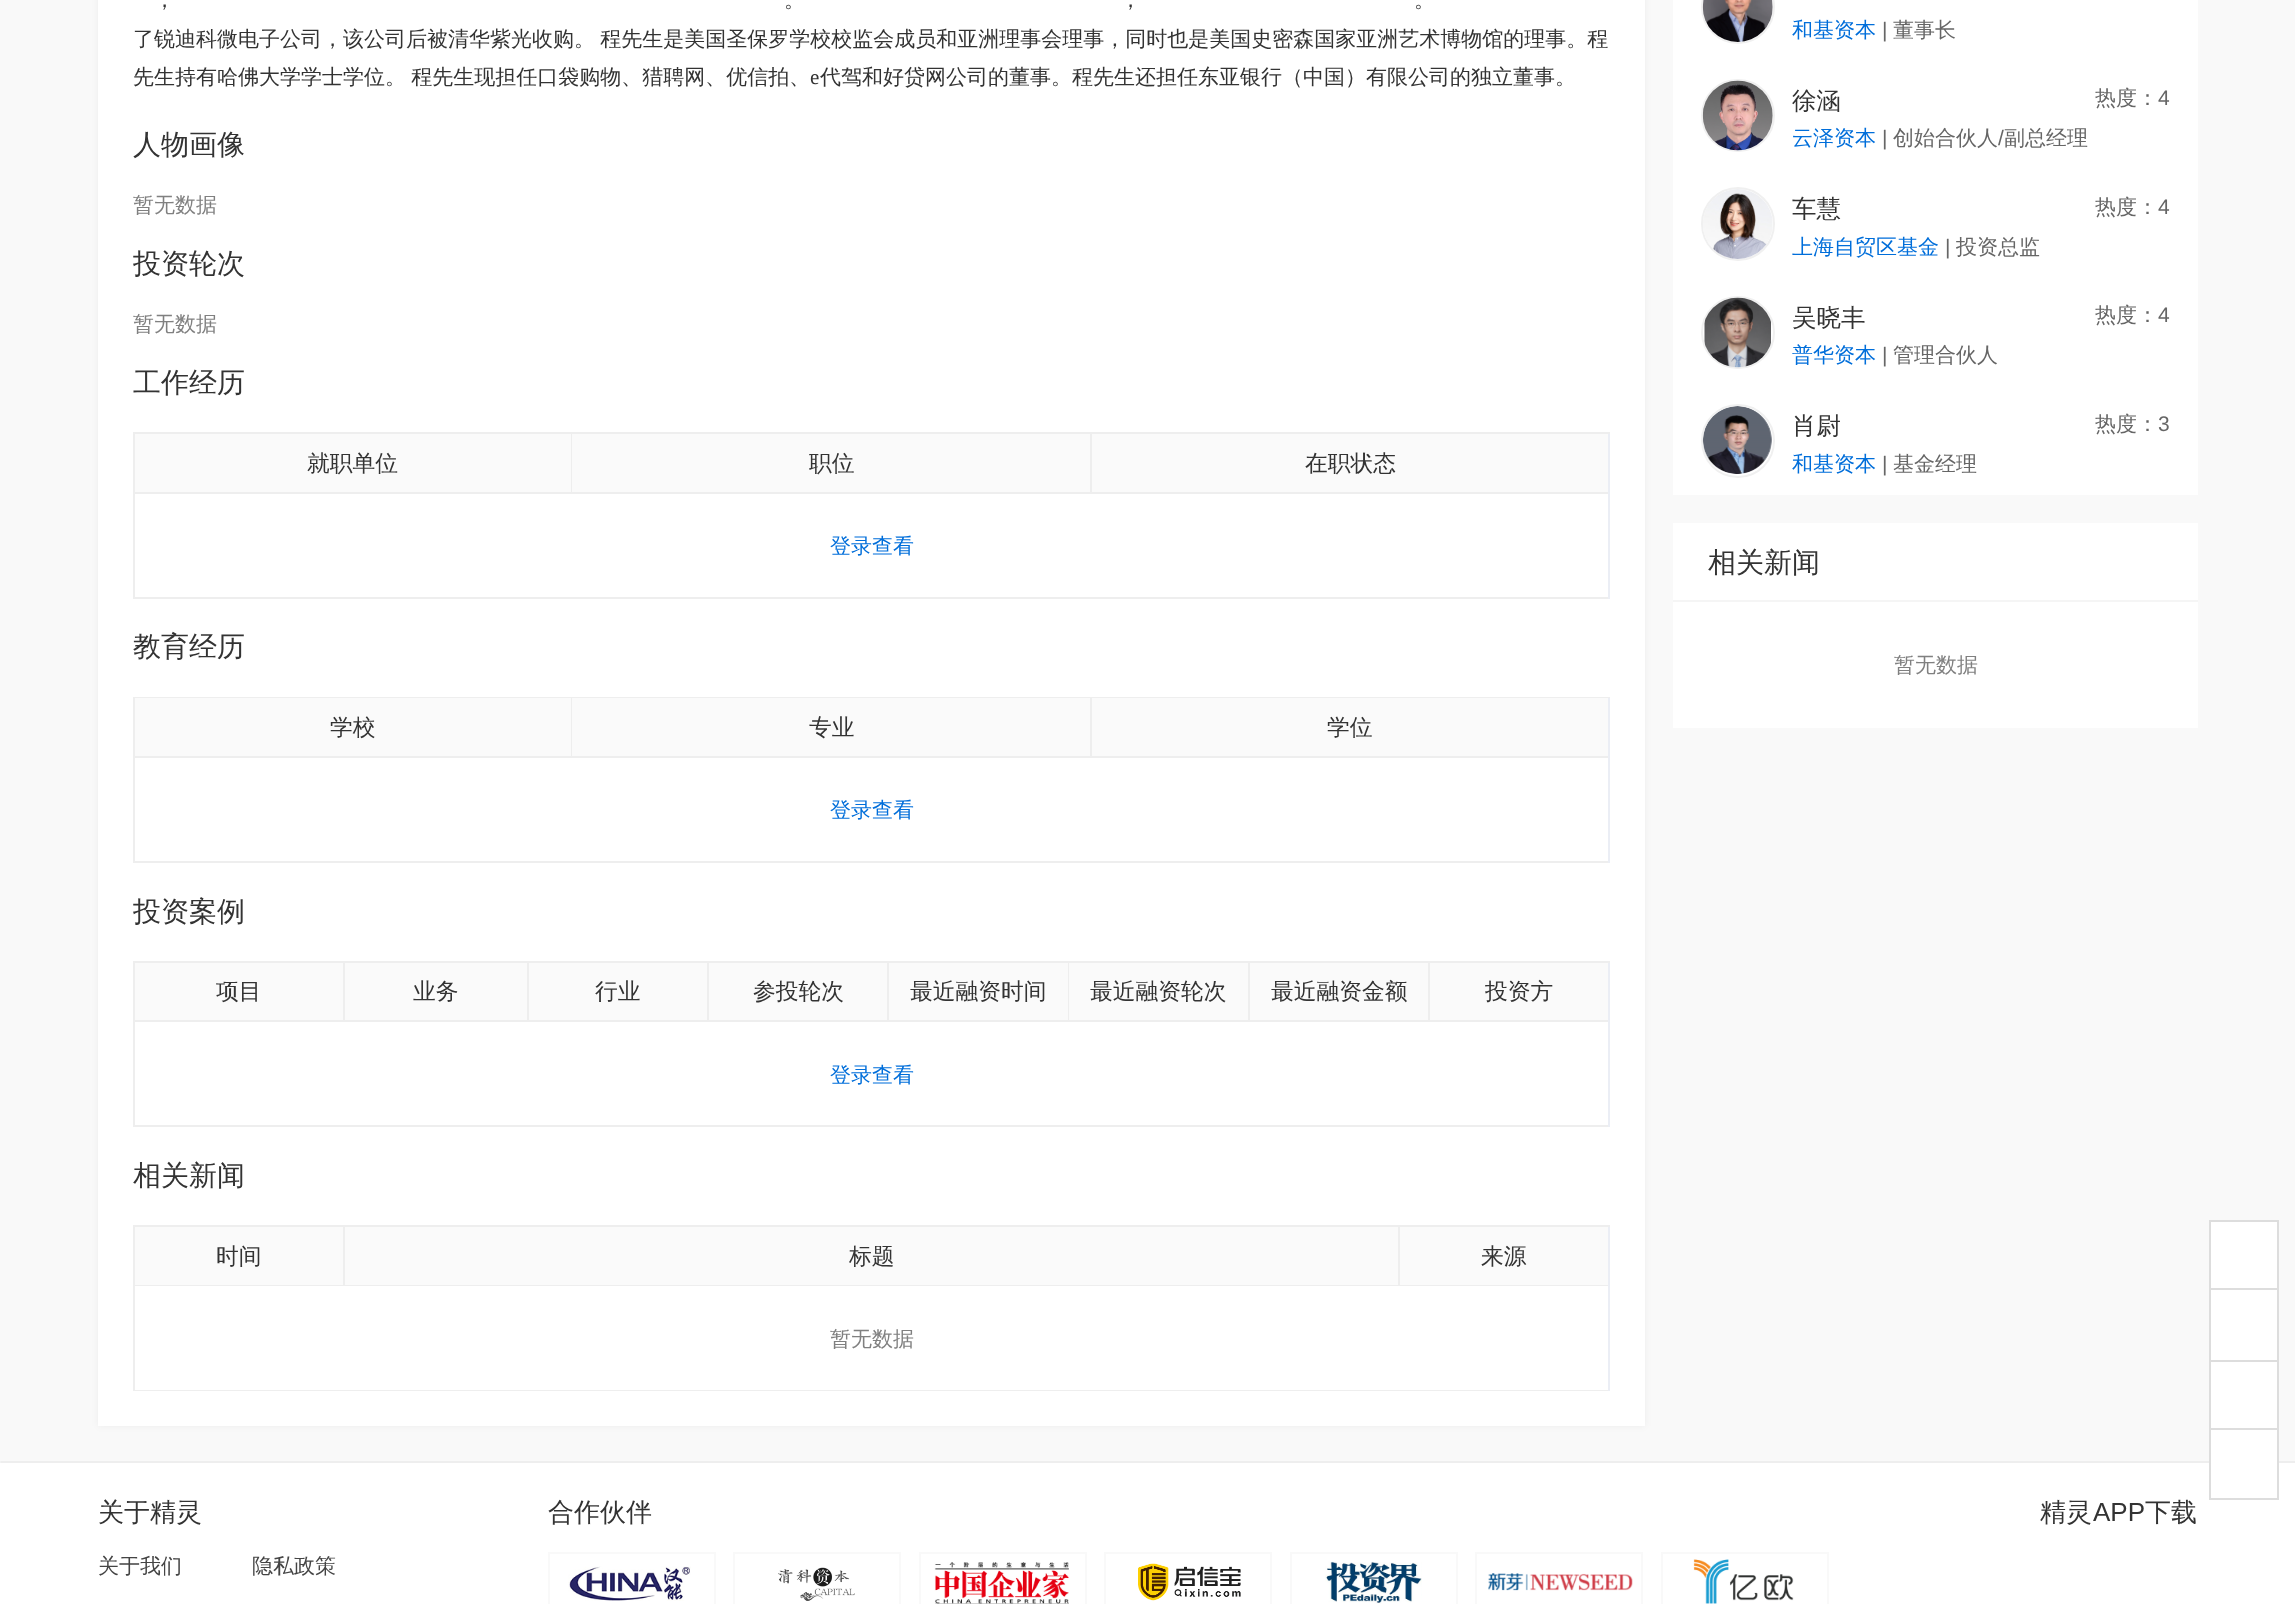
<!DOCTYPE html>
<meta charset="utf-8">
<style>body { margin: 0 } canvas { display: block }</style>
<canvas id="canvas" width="2295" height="1604"></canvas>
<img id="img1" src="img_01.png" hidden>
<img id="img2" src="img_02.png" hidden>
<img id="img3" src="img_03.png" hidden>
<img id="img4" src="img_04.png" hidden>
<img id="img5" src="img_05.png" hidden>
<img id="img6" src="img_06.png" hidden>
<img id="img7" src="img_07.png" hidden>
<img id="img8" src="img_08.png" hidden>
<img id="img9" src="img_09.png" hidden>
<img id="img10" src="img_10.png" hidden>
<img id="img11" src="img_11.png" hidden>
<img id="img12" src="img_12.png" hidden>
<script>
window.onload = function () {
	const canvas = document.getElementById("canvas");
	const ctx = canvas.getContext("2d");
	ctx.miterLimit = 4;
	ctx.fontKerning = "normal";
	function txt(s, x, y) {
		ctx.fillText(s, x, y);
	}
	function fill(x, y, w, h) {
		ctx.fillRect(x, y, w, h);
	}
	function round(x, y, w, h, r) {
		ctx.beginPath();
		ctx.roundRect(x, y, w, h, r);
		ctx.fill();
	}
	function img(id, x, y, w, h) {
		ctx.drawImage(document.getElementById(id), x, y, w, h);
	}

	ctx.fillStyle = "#FFFFFF";
	fill(0, 0, 2295, 1604);
	ctx.fillStyle = "#F9F9F9";
	fill(0, 0, 2295, 1461);
	ctx.fillStyle = "rgba(0, 0, 0, 0.05)";
	ctx.filter = "blur(3.5px)";
	ctx.beginPath();
	ctx.rect(98, -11, 1547, 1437);
	ctx.fill();
	ctx.filter = "none";
	ctx.fillStyle = "#FFFFFF";
	fill(98, 0, 1547, 1426);
	ctx.fillStyle = "#EEEEEE";
	fill(133, 432, 1477, 2);
	fill(133, 432, 2, 167);
	ctx.fillStyle = "#FAFAFA";
	fill(135, 434, 436, 58);
	ctx.fillStyle = "#EEEEEE";
	fill(571, 434, 1, 60);
	fill(135, 492, 437, 2);
	ctx.fillStyle = "#FAFAFA";
	fill(572, 434, 518, 58);
	ctx.fillStyle = "#EEEEEE";
	fill(1090, 434, 2, 60);
	fill(572, 492, 1038, 2);
	ctx.fillStyle = "#FAFAFA";
	fill(1092, 434, 516, 58);
	ctx.fillStyle = "#EEEEEE";
	fill(135, 597, 1475, 2);
	ctx.fillStyle = "#EBEEF5";
	fill(1608, 434, 2, 165);
	ctx.fillStyle = "#EEEEEE";
	fill(133, 697, 1477, 1);
	fill(133, 697, 2, 166);
	ctx.fillStyle = "#FAFAFA";
	fill(135, 698, 436, 58);
	ctx.fillStyle = "#EEEEEE";
	fill(571, 698, 1, 60);
	fill(135, 756, 437, 2);
	ctx.fillStyle = "#FAFAFA";
	fill(572, 698, 518, 58);
	ctx.fillStyle = "#EEEEEE";
	fill(1090, 698, 2, 60);
	fill(572, 756, 1038, 2);
	ctx.fillStyle = "#FAFAFA";
	fill(1092, 698, 516, 58);
	ctx.fillStyle = "#EEEEEE";
	fill(135, 861, 1475, 2);
	ctx.fillStyle = "#EBEEF5";
	fill(1608, 698, 2, 165);
	ctx.fillStyle = "#EEEEEE";
	fill(133, 961, 1477, 2);
	fill(133, 961, 2, 166);
	ctx.fillStyle = "#FAFAFA";
	fill(135, 963, 208, 57);
	ctx.fillStyle = "#EEEEEE";
	fill(343, 963, 2, 59);
	fill(135, 1020, 210, 2);
	ctx.fillStyle = "#FAFAFA";
	fill(345, 963, 182, 57);
	ctx.fillStyle = "#EEEEEE";
	fill(527, 963, 2, 59);
	fill(345, 1020, 184, 2);
	ctx.fillStyle = "#FAFAFA";
	fill(529, 963, 178, 57);
	ctx.fillStyle = "#EEEEEE";
	fill(707, 963, 2, 59);
	fill(529, 1020, 180, 2);
	ctx.fillStyle = "#FAFAFA";
	fill(709, 963, 178, 57);
	ctx.fillStyle = "#EEEEEE";
	fill(887, 963, 2, 59);
	fill(709, 1020, 180, 2);
	ctx.fillStyle = "#FAFAFA";
	fill(889, 963, 179, 57);
	ctx.fillStyle = "#EEEEEE";
	fill(1068, 963, 1, 59);
	fill(889, 1020, 180, 2);
	ctx.fillStyle = "#FAFAFA";
	fill(1069, 963, 179, 57);
	ctx.fillStyle = "#EEEEEE";
	fill(1248, 963, 2, 59);
	fill(1069, 1020, 181, 2);
	ctx.fillStyle = "#FAFAFA";
	fill(1250, 963, 178, 57);
	ctx.fillStyle = "#EEEEEE";
	fill(1428, 963, 2, 59);
	fill(1250, 1020, 360, 2);
	ctx.fillStyle = "#FAFAFA";
	fill(1430, 963, 178, 57);
	ctx.fillStyle = "#EEEEEE";
	fill(135, 1125, 1475, 2);
	ctx.fillStyle = "#EBEEF5";
	fill(1608, 963, 2, 164);
	ctx.fillStyle = "#EEEEEE";
	fill(133, 1225, 1477, 2);
	fill(133, 1225, 2, 166);
	ctx.fillStyle = "#FAFAFA";
	fill(135, 1227, 208, 58);
	ctx.fillStyle = "#EEEEEE";
	fill(343, 1227, 2, 59);
	fill(135, 1285, 210, 1);
	ctx.fillStyle = "#FAFAFA";
	fill(345, 1227, 1053, 58);
	ctx.fillStyle = "#EEEEEE";
	fill(1398, 1227, 2, 59);
	fill(345, 1285, 1265, 1);
	ctx.fillStyle = "#FAFAFA";
	fill(1400, 1227, 208, 58);
	ctx.fillStyle = "#EEEEEE";
	fill(135, 1390, 1475, 1);
	ctx.fillStyle = "#EBEEF5";
	fill(1608, 1227, 2, 164);
	ctx.fillStyle = "#FFFFFF";
	fill(1673, 0, 525, 495);
	ctx.beginPath();
	ctx.arc(1738, 7, 36, 0, Math.PI * 2);
	ctx.strokeStyle = "#F0F0F0";
	ctx.lineWidth = 2;
	ctx.stroke();
	img("img1", 1702, 0, 71, 42);
	ctx.beginPath();
	ctx.roundRect(1702, 80, 72, 71, 35.5);
	ctx.stroke();
	img("img2", 1702, 80, 71, 71);
	ctx.beginPath();
	ctx.arc(1738, 224, 36, 0, Math.PI * 2);
	ctx.stroke();
	img("img3", 1703, 189, 70, 70);
	ctx.beginPath();
	ctx.roundRect(1702, 297, 72, 71, 35.5);
	ctx.stroke();
	img("img4", 1704, 297, 67, 71);
	ctx.beginPath();
	ctx.arc(1738, 441, 36, 0, Math.PI * 2);
	ctx.stroke();
	img("img5", 1702, 406, 70, 68);
	fill(1673, 523, 525, 205);
	ctx.fillStyle = "#F5F5F5";
	fill(1673, 600, 525, 2);
	ctx.fillStyle = "#FFFFFF";
	ctx.beginPath();
	ctx.rect(2210, 1221, 68, 68);
	ctx.fill();
	ctx.strokeStyle = "#DDDDDD";
	ctx.stroke();
	fill(2211, 1290, 66, 70);
	ctx.fillStyle = "#DDDDDD";
	fill(2277, 1290, 2, 70);
	fill(2209, 1290, 2, 70);
	ctx.fillStyle = "#FFFFFF";
	ctx.beginPath();
	ctx.rect(2210, 1361, 68, 68);
	ctx.fill();
	ctx.stroke();
	ctx.fillStyle = "#EEEEEE";
	round(0, 1461, 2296, 2, 1);
	ctx.fillStyle = "#FFFFFF";
	fill(2211, 1430, 66, 33);
	ctx.fillStyle = "#DDDDDD";
	fill(2277, 1430, 2, 70);
	fill(2209, 1498, 70, 2);
	fill(2209, 1430, 2, 70);
	ctx.strokeStyle = "#F9F9F9";
	ctx.strokeRect(549, 1553, 166, 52);
	img("img6", 568, 1566, 123, 35);
	ctx.strokeRect(734, 1553, 166, 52);
	img("img7", 778, 1567, 77, 34);
	ctx.strokeRect(920, 1553, 166, 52);
	img("img8", 934, 1562, 135, 42);
	ctx.strokeRect(1105, 1553, 166, 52);
	img("img9", 1138, 1563, 103, 38);
	ctx.strokeRect(1291, 1553, 166, 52);
	img("img10", 1325, 1561, 97, 43);
	ctx.strokeRect(1476, 1553, 166, 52);
	img("img11", 1488, 1573, 145, 18);
	ctx.strokeRect(1662, 1553, 166, 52);
	img("img12", 1693, 1559, 101, 45);
	ctx.font = "500 21px WenQuanYi Zen Hei";
	ctx.fillStyle = "#333333";
	txt("，", 154, 7);
	txt("。", 784, 7);
	txt("，", 1120, 7);
	txt("。", 1414, 7);
	ctx.wordSpacing = "-1px";
	txt("了锐迪科微电子公司，该公司后被清华紫光收购。 程先生是美国圣保罗学校校监会成员和亚洲理事会理事，同时也是美国史密森国家亚洲艺术博物馆的理事。程", 133, 46);
	txt("先生持有哈佛大学学士学位。 程先生现担任口袋购物、猎聘网、优信拍、", 133, 84);
	ctx.wordSpacing = "0px";
	ctx.font = "21px Liberation Serif";
	txt("e", 810, 84);
	ctx.font = "500 21px WenQuanYi Zen Hei";
	txt("代驾和好贷网公司的董事。程先生还担任东亚银行（中国）有限公司的独立董事。", 820, 84);
	ctx.font = "500 28px WenQuanYi Zen Hei";
	txt("人物画像", 133, 154);
	ctx.font = "500 21px WenQuanYi Zen Hei";
	ctx.fillStyle = "#808080";
	txt("暂无数据", 133, 212);
	ctx.font = "500 28px WenQuanYi Zen Hei";
	ctx.fillStyle = "#333333";
	txt("投资轮次", 133, 273);
	ctx.font = "500 21px WenQuanYi Zen Hei";
	ctx.fillStyle = "#808080";
	txt("暂无数据", 133, 331);
	ctx.font = "500 28px WenQuanYi Zen Hei";
	ctx.fillStyle = "#333333";
	txt("工作经历", 133, 392);
	ctx.font = "500 22.75px WenQuanYi Zen Hei";
	txt("就职单位", 307, 471);
	txt("职位", 809, 471);
	txt("在职状态", 1305, 471);
	ctx.font = "500 21px WenQuanYi Zen Hei";
	ctx.fillStyle = "#006EDA";
	txt("登录查看", 830, 553);
	ctx.font = "500 28px WenQuanYi Zen Hei";
	ctx.fillStyle = "#333333";
	txt("教育经历", 133, 656);
	ctx.font = "500 22.75px WenQuanYi Zen Hei";
	txt("学校", 330, 735);
	txt("专业", 809, 735);
	txt("学位", 1327, 735);
	ctx.font = "500 21px WenQuanYi Zen Hei";
	ctx.fillStyle = "#006EDA";
	txt("登录查看", 830, 817);
	ctx.font = "500 28px WenQuanYi Zen Hei";
	ctx.fillStyle = "#333333";
	txt("投资案例", 133, 921);
	ctx.font = "500 22.75px WenQuanYi Zen Hei";
	txt("项目", 216, 999);
	txt("业务", 413, 999);
	txt("行业", 595, 999);
	txt("参投轮次", 753, 999);
	txt("最近融资时间", 910, 999);
	txt("最近融资轮次", 1090, 999);
	txt("最近融资金额", 1271, 999);
	txt("投资方", 1485, 999);
	ctx.font = "500 21px WenQuanYi Zen Hei";
	ctx.fillStyle = "#006EDA";
	txt("登录查看", 830, 1082);
	ctx.font = "500 28px WenQuanYi Zen Hei";
	ctx.fillStyle = "#333333";
	txt("相关新闻", 133, 1185);
	ctx.font = "500 22.75px WenQuanYi Zen Hei";
	txt("时间", 216, 1264);
	txt("标题", 849, 1264);
	txt("来源", 1481, 1264);
	ctx.font = "500 21px WenQuanYi Zen Hei";
	ctx.fillStyle = "#808080";
	txt("暂无数据", 830, 1346);
	ctx.fillStyle = "#006EDA";
	txt("和基资本", 1792, 37);
	ctx.font = "21px Liberation Sans";
	ctx.fillStyle = "#666666";
	txt("|", 1882, 37);
	ctx.font = "500 21px WenQuanYi Zen Hei";
	txt("董事长", 1893, 37);
	ctx.font = "500 24.5px WenQuanYi Zen Hei";
	ctx.fillStyle = "#333333";
	txt("徐涵", 1792, 109);
	ctx.font = "500 21px WenQuanYi Zen Hei";
	ctx.fillStyle = "#666666";
	txt("热度：", 2095, 105);
	ctx.font = "21px Liberation Sans";
	txt("4", 2158, 105);
	ctx.font = "500 21px WenQuanYi Zen Hei";
	ctx.fillStyle = "#006EDA";
	txt("云泽资本", 1792, 145);
	ctx.font = "21px Liberation Sans";
	ctx.fillStyle = "#666666";
	txt("|", 1882, 145);
	ctx.font = "500 21px WenQuanYi Zen Hei";
	txt("创始合伙人", 1893, 145);
	ctx.font = "21px Liberation Sans";
	txt("/", 1998, 145);
	ctx.font = "500 21px WenQuanYi Zen Hei";
	txt("副总经理", 2004, 145);
	ctx.font = "500 24.5px WenQuanYi Zen Hei";
	ctx.fillStyle = "#333333";
	txt("车慧", 1792, 217);
	ctx.font = "500 21px WenQuanYi Zen Hei";
	ctx.fillStyle = "#666666";
	txt("热度：", 2095, 214);
	ctx.font = "21px Liberation Sans";
	txt("4", 2158, 214);
	ctx.font = "500 21px WenQuanYi Zen Hei";
	ctx.fillStyle = "#006EDA";
	txt("上海自贸区基金", 1792, 254);
	ctx.font = "21px Liberation Sans";
	ctx.fillStyle = "#666666";
	txt("|", 1945, 254);
	ctx.font = "500 21px WenQuanYi Zen Hei";
	txt("投资总监", 1956, 254);
	ctx.font = "500 24.5px WenQuanYi Zen Hei";
	ctx.fillStyle = "#333333";
	txt("吴晓丰", 1792, 326);
	ctx.font = "500 21px WenQuanYi Zen Hei";
	ctx.fillStyle = "#666666";
	txt("热度：", 2095, 322);
	ctx.font = "21px Liberation Sans";
	txt("4", 2158, 322);
	ctx.font = "500 21px WenQuanYi Zen Hei";
	ctx.fillStyle = "#006EDA";
	txt("普华资本", 1792, 362);
	ctx.font = "21px Liberation Sans";
	ctx.fillStyle = "#666666";
	txt("|", 1882, 362);
	ctx.font = "500 21px WenQuanYi Zen Hei";
	txt("管理合伙人", 1893, 362);
	ctx.font = "500 24.5px WenQuanYi Zen Hei";
	ctx.fillStyle = "#333333";
	txt("肖尉", 1792, 434);
	ctx.font = "500 21px WenQuanYi Zen Hei";
	ctx.fillStyle = "#666666";
	txt("热度：", 2095, 431);
	ctx.font = "21px Liberation Sans";
	txt("3", 2158, 431);
	ctx.font = "500 21px WenQuanYi Zen Hei";
	ctx.fillStyle = "#006EDA";
	txt("和基资本", 1792, 471);
	ctx.font = "21px Liberation Sans";
	ctx.fillStyle = "#666666";
	txt("|", 1882, 471);
	ctx.font = "500 21px WenQuanYi Zen Hei";
	txt("基金经理", 1893, 471);
	ctx.font = "500 28px WenQuanYi Zen Hei";
	ctx.fillStyle = "#333333";
	txt("相关新闻", 1708, 572);
	ctx.font = "500 21px WenQuanYi Zen Hei";
	ctx.fillStyle = "#808080";
	txt("暂无数据", 1894, 672);
	ctx.font = "500 26px WenQuanYi Zen Hei";
	ctx.fillStyle = "#333333";
	txt("关于精灵", 98, 1521);
	ctx.font = "500 21px WenQuanYi Zen Hei";
	ctx.fillStyle = "#444444";
	txt("关于我们", 98, 1573);
	txt("隐私政策", 252, 1573);
	ctx.font = "500 26px WenQuanYi Zen Hei";
	ctx.fillStyle = "#333333";
	txt("合作伙伴", 548, 1521);
	txt("精灵", 2040, 1521);
	ctx.font = "26px Liberation Sans";
	txt("APP", 2093, 1521);
	ctx.font = "500 26px WenQuanYi Zen Hei";
	txt("下载", 2145, 1521);
};
</script>
